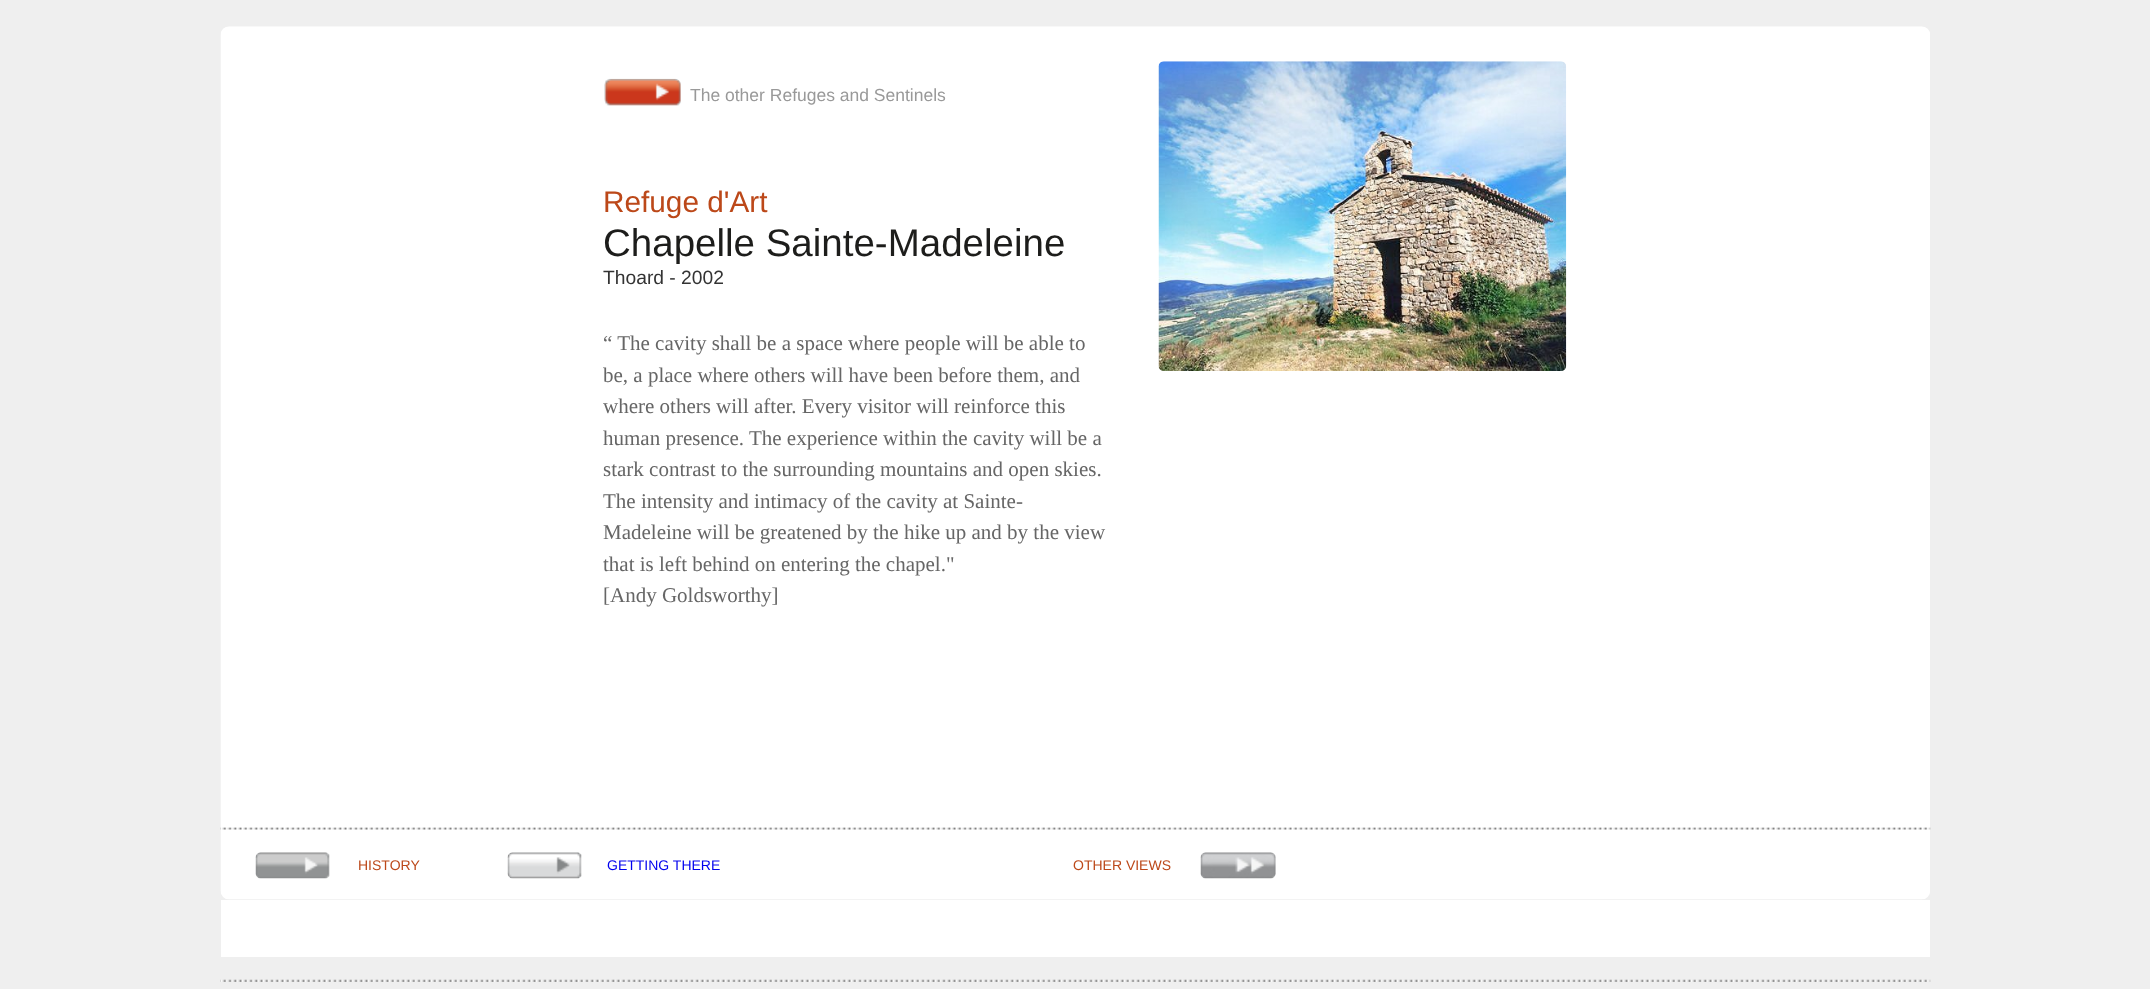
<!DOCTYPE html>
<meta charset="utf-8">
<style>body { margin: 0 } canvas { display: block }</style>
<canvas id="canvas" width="2150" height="989"></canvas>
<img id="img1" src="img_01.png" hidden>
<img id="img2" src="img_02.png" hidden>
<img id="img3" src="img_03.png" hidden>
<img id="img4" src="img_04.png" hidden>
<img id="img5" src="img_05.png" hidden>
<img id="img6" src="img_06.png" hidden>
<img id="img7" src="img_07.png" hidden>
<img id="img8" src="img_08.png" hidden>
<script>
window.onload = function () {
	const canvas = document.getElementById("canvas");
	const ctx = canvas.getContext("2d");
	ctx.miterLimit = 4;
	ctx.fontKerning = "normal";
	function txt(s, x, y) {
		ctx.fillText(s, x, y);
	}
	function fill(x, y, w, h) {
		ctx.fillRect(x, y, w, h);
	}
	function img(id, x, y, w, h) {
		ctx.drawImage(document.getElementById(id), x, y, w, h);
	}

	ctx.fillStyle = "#EFEFEF";
	fill(0, 0, 2150, 989);
	img("img1", 220, 26, 1710, 874);
	img("img2", 604, 78, 77, 28);
	img("img3", 1158, 61, 409, 310);
	img("img4", 220, 827, 1711, 3);
	img("img5", 255, 852, 75, 27);
	img("img6", 507, 852, 75, 27);
	img("img7", 1200, 852, 76, 27);
	img("img8", 220, 979, 1711, 3);
	ctx.fillStyle = "#FFFFFF";
	fill(221, 900, 1709, 57);
	ctx.font = "17.5px Liberation Sans";
	ctx.fillStyle = "#999999";
	txt("The other Refuges and Sentinels", 690, 101);
	ctx.font = "29.75px Liberation Sans";
	ctx.fillStyle = "#BC4819";
	txt("Refuge d'Art", 603, 212);
	ctx.font = "38.5px Liberation Sans";
	ctx.fillStyle = "#1D1D1B";
	txt("Chapelle Sainte-Madeleine", 603, 256);
	ctx.font = "19.25px Liberation Sans";
	ctx.fillStyle = "#333333";
	txt("Thoard - 2002", 603, 284);
	ctx.font = "21px Liberation Serif";
	ctx.fillStyle = "#666666";
	txt("“ The cavity shall be a space where people will be able to", 603, 350);
	txt("be, a place where others will have been before them, and", 603, 382);
	txt("where others will after. Every visitor will reinforce this", 603, 413);
	txt("human presence. The experience within the cavity will be a", 603, 445);
	txt("stark contrast to the surrounding mountains and open skies.", 603, 476);
	txt("The intensity and intimacy of the cavity at Sainte-", 603, 508);
	txt("Madeleine will be greatened by the hike up and by the view", 603, 539);
	txt("that is left behind on entering the chapel.\"", 603, 571);
	txt("[Andy Goldsworthy]", 603, 602);
	ctx.font = "14px Liberation Sans";
	ctx.fillStyle = "#BC4819";
	txt("HISTORY", 358, 870);
	ctx.fillStyle = "#0000EE";
	txt("GETTING THERE", 607, 870);
	ctx.fillStyle = "#BC4819";
	txt("OTHER VIEWS", 1073, 870);
};
</script>
